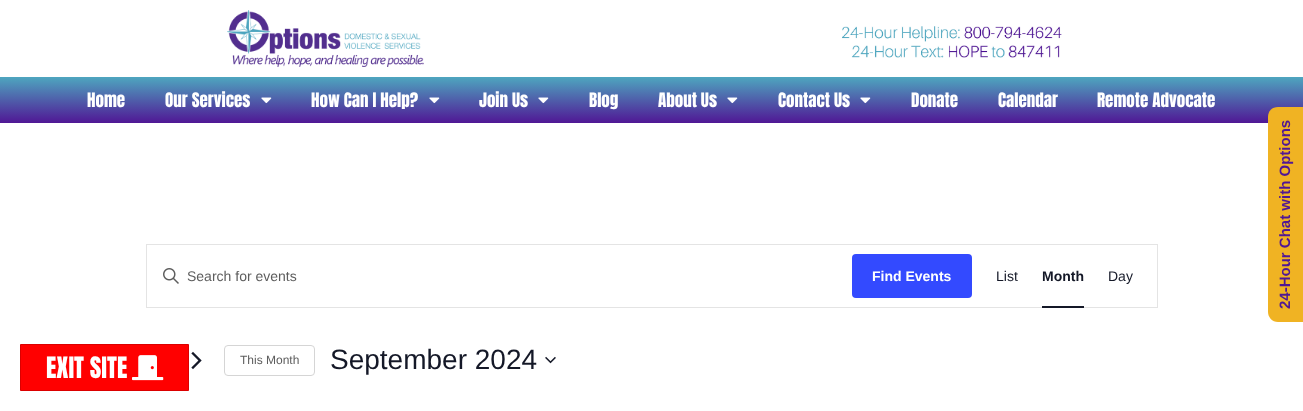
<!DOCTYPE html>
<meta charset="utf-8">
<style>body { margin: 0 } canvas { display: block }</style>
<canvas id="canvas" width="1303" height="411"></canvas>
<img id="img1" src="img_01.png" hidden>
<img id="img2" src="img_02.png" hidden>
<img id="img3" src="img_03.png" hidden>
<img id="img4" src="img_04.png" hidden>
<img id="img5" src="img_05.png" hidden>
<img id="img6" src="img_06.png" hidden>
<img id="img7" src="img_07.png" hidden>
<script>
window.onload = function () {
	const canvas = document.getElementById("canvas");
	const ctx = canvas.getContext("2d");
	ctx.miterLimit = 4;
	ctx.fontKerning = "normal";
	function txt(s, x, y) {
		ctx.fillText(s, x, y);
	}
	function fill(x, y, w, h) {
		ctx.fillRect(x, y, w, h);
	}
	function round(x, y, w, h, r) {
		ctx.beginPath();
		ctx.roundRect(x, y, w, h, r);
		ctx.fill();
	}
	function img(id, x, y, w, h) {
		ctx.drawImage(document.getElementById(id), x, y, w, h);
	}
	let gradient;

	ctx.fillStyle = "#FFFFFF";
	fill(0, 0, 1303, 411);
	img("img1", 227, 10, 197, 57);
	img("img2", 842, 26, 220, 32);
	gradient = ctx.createLinearGradient(652, 77, 652, 123);
	gradient.addColorStop(0, "#4EA6BF");
	gradient.addColorStop(1, "#501795");
	ctx.fillStyle = gradient;
	fill(0, 77, 1303, 46);
	img("img3", 261, 97, 11, 7);
	img("img3", 429, 97, 11, 7);
	img("img3", 538, 97, 11, 7);
	img("img3", 727, 97, 11, 7);
	img("img3", 860, 97, 11, 7);
	ctx.fillStyle = "#F0B323";
	ctx.beginPath();
	ctx.moveTo(1268, 312);
	ctx.lineTo(1268, 117);
	ctx.bezierCurveTo(1268, 111, 1272, 107, 1278, 107);
	ctx.lineTo(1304, 107);
	ctx.lineTo(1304, 322);
	ctx.lineTo(1278, 322);
	ctx.bezierCurveTo(1272, 322, 1268, 317, 1268, 312);
	ctx.closePath();
	ctx.fill();
	ctx.fillStyle = "#FF0000";
	ctx.beginPath();
	ctx.rect(20.5, 344.5, 168, 46);
	ctx.fill();
	ctx.strokeStyle = "#DB0000";
	ctx.stroke();
	img("img4", 132, 355, 32, 26);
	ctx.strokeStyle = "#E4E4E4";
	ctx.strokeRect(146.5, 244.5, 1011, 63);
	img("img5", 163, 268, 16, 16);
	ctx.fillStyle = "#334AFF";
	round(852, 254, 120, 44, 4);
	ctx.fillStyle = "#141827";
	fill(1042, 306, 42, 2);
	img("img6", 191, 351, 11, 19);
	ctx.beginPath();
	ctx.roundRect(224.5, 345.5, 90, 30, 3.5);
	ctx.strokeStyle = "#D5D5D5";
	ctx.stroke();
	img("img7", 545, 356, 11, 8);
	ctx.font = "17px Anton";
	ctx.fillStyle = "#FFFFFF";
	txt("Home", 87, 107);
	txt("Our Services", 165, 107);
	txt("How Can I Help?", 311, 107);
	txt("Join Us", 479, 107);
	txt("Blog", 589, 107);
	txt("About Us", 658, 107);
	txt("Contact Us", 778, 107);
	txt("Donate", 911, 107);
	txt("Calendar", 998, 107);
	txt("Remote Advocate", 1097, 107);
	ctx.font = "bold 15px Liberation Sans";
	ctx.fillStyle = "#501795";
	ctx.save();
	ctx.translate(1290, 309);
	ctx.rotate(-90 * Math.PI / 180);
	ctx.fillText("24-Hour Chat with Options", 0, 0);
	ctx.restore();
	ctx.font = "25px Anton";
	ctx.fillStyle = "#FFFFFF";
	txt("EXIT SITE", 46, 378);
	ctx.font = "14px Liberation Sans";
	ctx.fillStyle = "#5D5D5D";
	txt("Search for events", 187, 281);
	ctx.font = "bold 14px Liberation Sans";
	ctx.fillStyle = "#FFFFFF";
	txt("Find Events", 872, 281);
	ctx.font = "14px Liberation Sans";
	ctx.fillStyle = "#141827";
	txt("List", 996, 281);
	ctx.font = "bold 14px Liberation Sans";
	txt("Month", 1042, 281);
	ctx.font = "14px Liberation Sans";
	txt("Day", 1108, 281);
	ctx.font = "12px Liberation Sans";
	ctx.fillStyle = "#5D5D5D";
	txt("This Month", 240, 364);
	ctx.font = "28px Liberation Sans";
	ctx.fillStyle = "#141827";
	txt("September 2024", 330, 369);
};
</script>
